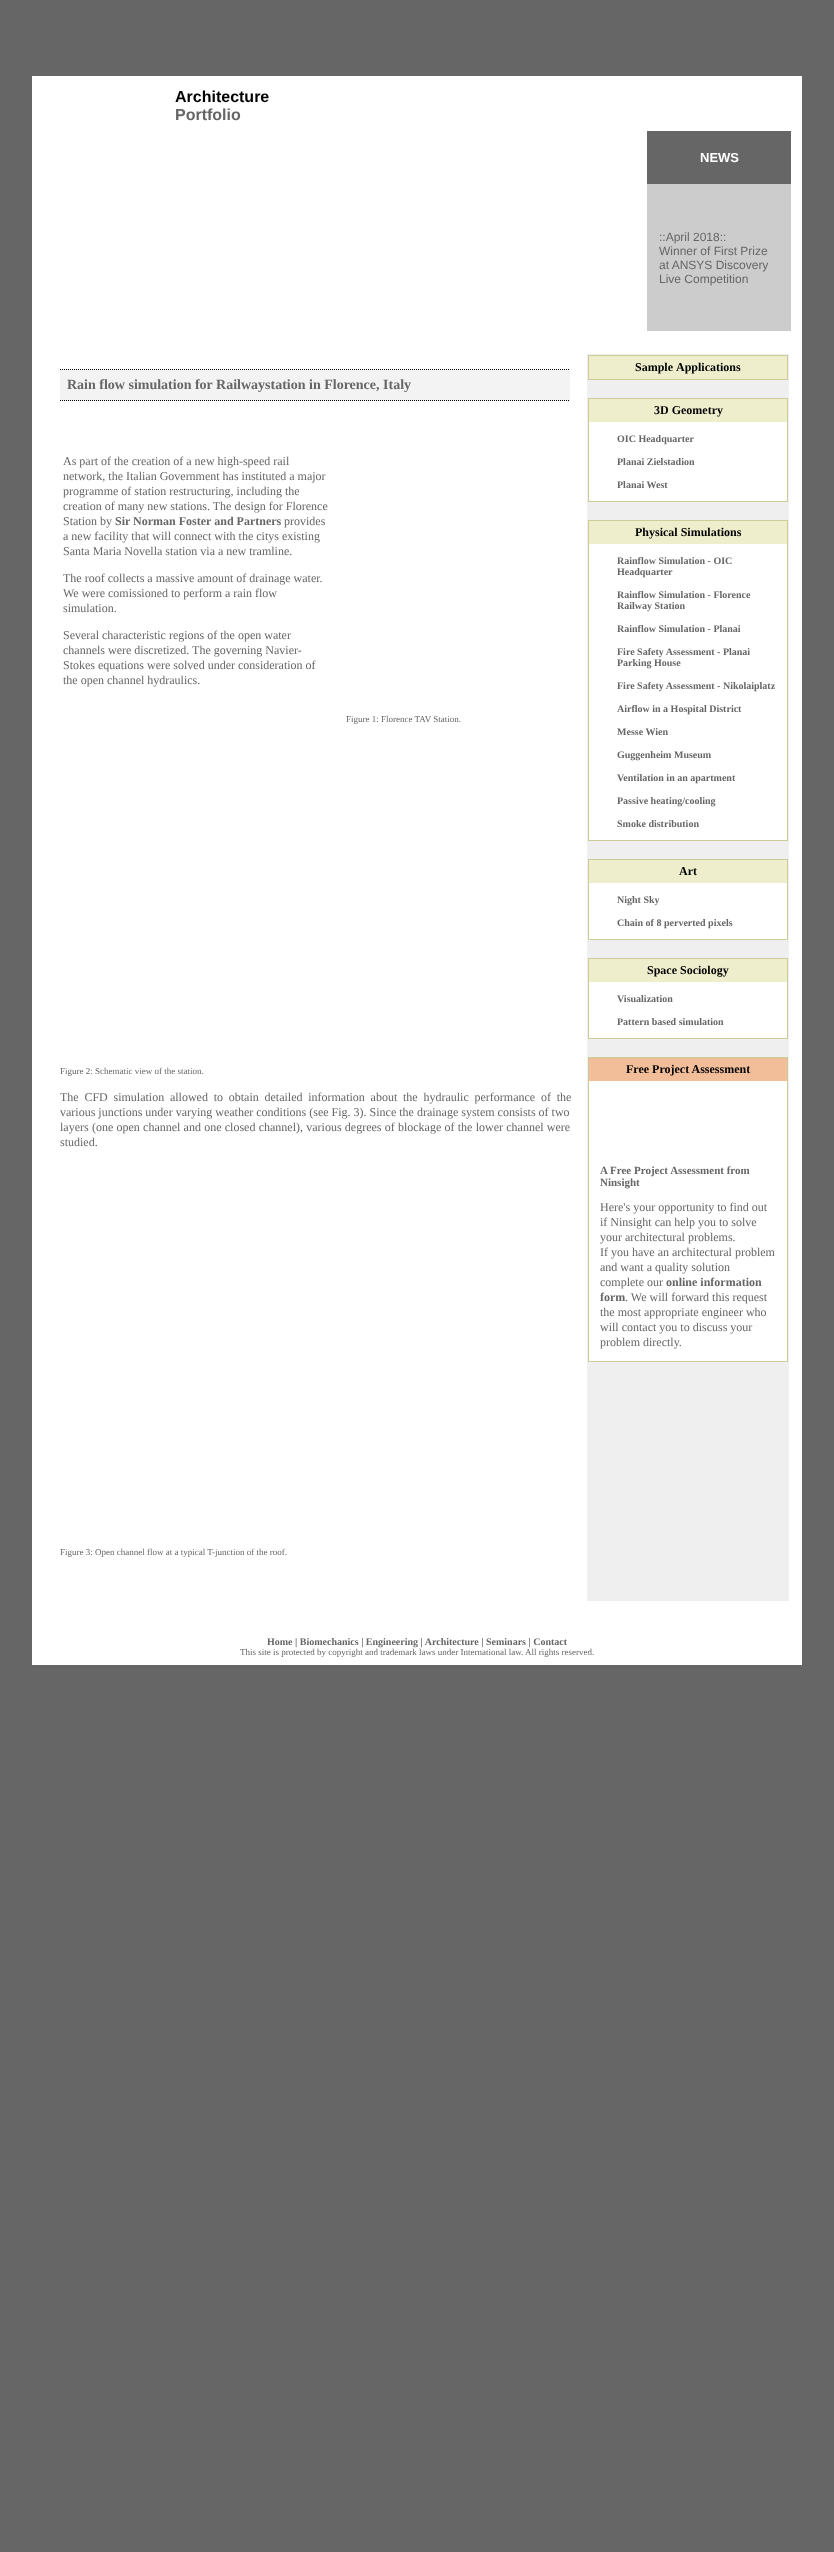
<!DOCTYPE html>
<meta charset="utf-8">
<style>body { margin: 0 } canvas { display: block }</style>
<canvas id="canvas" width="834" height="2552"></canvas>
<script>
window.onload = function () {
	const canvas = document.getElementById("canvas");
	const ctx = canvas.getContext("2d");
	ctx.miterLimit = 4;
	ctx.fontKerning = "normal";
	function txt(s, x, y) {
		ctx.fillText(s, x, y);
	}
	function fill(x, y, w, h) {
		ctx.fillRect(x, y, w, h);
	}

	ctx.fillStyle = "#666666";
	fill(0, 0, 834, 2552);
	ctx.fillStyle = "#FFFFFF";
	fill(32, 76, 770, 1589);
	ctx.fillStyle = "#666666";
	fill(647, 131, 144, 53);
	ctx.fillStyle = "#CCCCCC";
	fill(647, 184, 144, 147);
	ctx.fillStyle = "#F3F3F3";
	fill(60, 369, 510, 32);
	ctx.beginPath();
	ctx.moveTo(60, 369.5);
	ctx.lineTo(570, 369.5);
	ctx.strokeStyle = "#000000";
	ctx.setLineDash([1, 1]);
	ctx.stroke();
	ctx.beginPath();
	ctx.moveTo(60, 400.5);
	ctx.lineTo(570, 400.5);
	ctx.stroke();
	ctx.fillStyle = "#EFEFEF";
	fill(587, 354, 202, 1247);
	ctx.fillStyle = "#CCCC99";
	fill(588, 355, 200, 25);
	ctx.fillStyle = "#EEEECC";
	fill(589, 356, 198, 23);
	ctx.fillStyle = "#CCCC99";
	fill(588, 398, 200, 104);
	ctx.fillStyle = "#EEEECC";
	fill(589, 399, 198, 23);
	ctx.fillStyle = "#FFFFFF";
	fill(589, 422, 198, 79);
	ctx.fillStyle = "#CCCC99";
	fill(588, 520, 200, 321);
	ctx.fillStyle = "#EEEECC";
	fill(589, 521, 198, 23);
	ctx.fillStyle = "#FFFFFF";
	fill(589, 544, 198, 296);
	ctx.fillStyle = "#CCCC99";
	fill(588, 859, 200, 81);
	ctx.fillStyle = "#EEEECC";
	fill(589, 860, 198, 23);
	ctx.fillStyle = "#FFFFFF";
	fill(589, 883, 198, 56);
	ctx.fillStyle = "#CCCC99";
	fill(588, 958, 200, 81);
	ctx.fillStyle = "#EEEECC";
	fill(589, 959, 198, 23);
	ctx.fillStyle = "#FFFFFF";
	fill(589, 982, 198, 56);
	ctx.fillStyle = "#CCCC99";
	fill(588, 1057, 200, 305);
	ctx.fillStyle = "#F2BD99";
	fill(589, 1058, 198, 23);
	ctx.fillStyle = "#FFFFFF";
	fill(589, 1081, 198, 280);
	ctx.font = "bold 16px Liberation Sans";
	ctx.fillStyle = "#000000";
	txt("Architecture", 175, 102);
	ctx.fillStyle = "#666666";
	txt("Portfolio", 175, 120);
	ctx.font = "bold 13px Liberation Sans";
	ctx.fillStyle = "#FFFFFF";
	txt("NEWS", 700, 162);
	ctx.font = "12px Liberation Sans";
	ctx.fillStyle = "#666666";
	txt("::April 2018::", 659, 241);
	txt("Winner of First Prize", 659, 255);
	txt("at ANSYS Discovery", 659, 269);
	txt("Live Competition", 659, 283);
	ctx.font = "bold 14px Liberation Serif";
	txt("Rain flow simulation for Railwaystation in Florence, Italy", 67, 389);
	ctx.font = "12px Liberation Serif";
	txt("As part of the creation of a new high-speed rail", 63, 465);
	txt("network, the Italian Government has instituted a major", 63, 480);
	txt("programme of station restructuring, including the", 63, 495);
	txt("creation of many new stations. The design for Florence", 63, 510);
	txt("Station by", 63, 525);
	ctx.font = "bold 12px Liberation Serif";
	txt("Sir Norman Foster and Partners", 115, 525);
	ctx.font = "12px Liberation Serif";
	txt("provides", 284, 525);
	txt("a new facility that will connect with the citys existing", 63, 540);
	txt("Santa Maria Novella station via a new tramline.", 63, 555);
	txt("The roof collects a massive amount of drainage water.", 63, 582);
	txt("We were comissioned to perform a rain flow", 63, 597);
	txt("simulation.", 63, 612);
	txt("Several characteristic regions of the open water", 63, 639);
	txt("channels were discretized. The governing Navier-", 63, 654);
	txt("Stokes equations were solved under consideration of", 63, 669);
	txt("the open channel hydraulics.", 63, 684);
	ctx.font = "9px Liberation Serif";
	txt("Figure 1: Florence TAV Station.", 346, 722);
	txt("Figure 2: Schematic view of the station.", 60, 1074);
	ctx.wordSpacing = "2.75px";
	ctx.font = "12px Liberation Serif";
	txt("The CFD simulation allowed to obtain detailed information about the hydraulic performance of the", 60, 1101);
	ctx.wordSpacing = "0px";
	txt("various junctions under varying weather conditions (see Fig. 3). Since the drainage system consists of two", 60, 1116);
	ctx.wordSpacing = "0.25px";
	txt("layers (one open channel and one closed channel), various degrees of blockage of the lower channel were", 60, 1131);
	ctx.wordSpacing = "0px";
	txt("studied.", 60, 1146);
	ctx.font = "9px Liberation Serif";
	txt("Figure 3: Open channel flow at a typical T-junction of the roof.", 60, 1555);
	ctx.font = "bold 12px Liberation Serif";
	ctx.fillStyle = "#000000";
	txt("Sample", 635, 371);
	txt("Applications", 676, 371);
	txt("3D Geometry", 654, 414);
	ctx.font = "bold 10px Liberation Serif";
	ctx.fillStyle = "#666666";
	txt("OIC Headquarter", 617, 442);
	txt("Planai Zielstadion", 617, 465);
	txt("Planai West", 617, 488);
	ctx.font = "bold 12px Liberation Serif";
	ctx.fillStyle = "#000000";
	txt("Physical Simulations", 635, 536);
	ctx.font = "bold 10px Liberation Serif";
	ctx.fillStyle = "#666666";
	txt("Rainflow Simulation - OIC", 617, 564);
	txt("Headquarter", 617, 575);
	txt("Rainflow Simulation - Florence", 617, 598);
	txt("Railway Station", 617, 609);
	txt("Rainflow Simulation - Planai", 617, 632);
	txt("Fire Safety Assessment - Planai", 617, 655);
	txt("Parking House", 617, 666);
	txt("Fire Safety Assessment - Nikolaiplatz", 617, 689);
	txt("Airflow in a Hospital District", 617, 712);
	txt("Messe Wien", 617, 735);
	txt("Guggenheim Museum", 617, 758);
	txt("Ventilation in an apartment", 617, 781);
	txt("Passive heating/cooling", 617, 804);
	txt("Smoke distribution", 617, 827);
	ctx.font = "bold 12px Liberation Serif";
	ctx.fillStyle = "#000000";
	txt("Art", 679, 875);
	ctx.font = "bold 10px Liberation Serif";
	ctx.fillStyle = "#666666";
	txt("Night Sky", 617, 903);
	txt("Chain of 8 perverted pixels", 617, 926);
	ctx.font = "bold 12px Liberation Serif";
	ctx.fillStyle = "#000000";
	txt("Space Sociology", 647, 974);
	ctx.font = "bold 10px Liberation Serif";
	ctx.fillStyle = "#666666";
	txt("Visualization", 617, 1002);
	txt("Pattern based simulation", 617, 1025);
	ctx.font = "bold 12px Liberation Serif";
	ctx.fillStyle = "#000000";
	txt("Free Project Assessment", 626, 1073);
	ctx.font = "bold 11px Liberation Serif";
	ctx.fillStyle = "#666666";
	txt("A Free Project Assessment from", 600, 1174);
	txt("Ninsight", 600, 1186);
	ctx.font = "12px Liberation Serif";
	txt("Here's your opportunity to find out", 600, 1211);
	txt("if Ninsight can help you to solve", 600, 1226);
	txt("your architectural problems.", 600, 1241);
	txt("If you have an architectural problem", 600, 1256);
	txt("and want a quality solution", 600, 1271);
	txt("complete our", 600, 1286);
	ctx.font = "bold 12px Liberation Serif";
	txt("online information", 666, 1286);
	txt("form", 600, 1301);
	ctx.font = "12px Liberation Serif";
	txt(". We will forward this request", 625, 1301);
	txt("the most appropriate engineer who", 600, 1316);
	txt("will contact you to discuss your", 600, 1331);
	txt("problem directly.", 600, 1346);
	ctx.font = "bold 10px Liberation Serif";
	txt("Home | Biomechanics | Engineering | Architecture | Seminars | Contact", 267, 1645);
	ctx.font = "9px Liberation Serif";
	txt("This site is protected by copyright and trademark laws under International law. All rights reserved.", 240, 1655);
};
</script>
